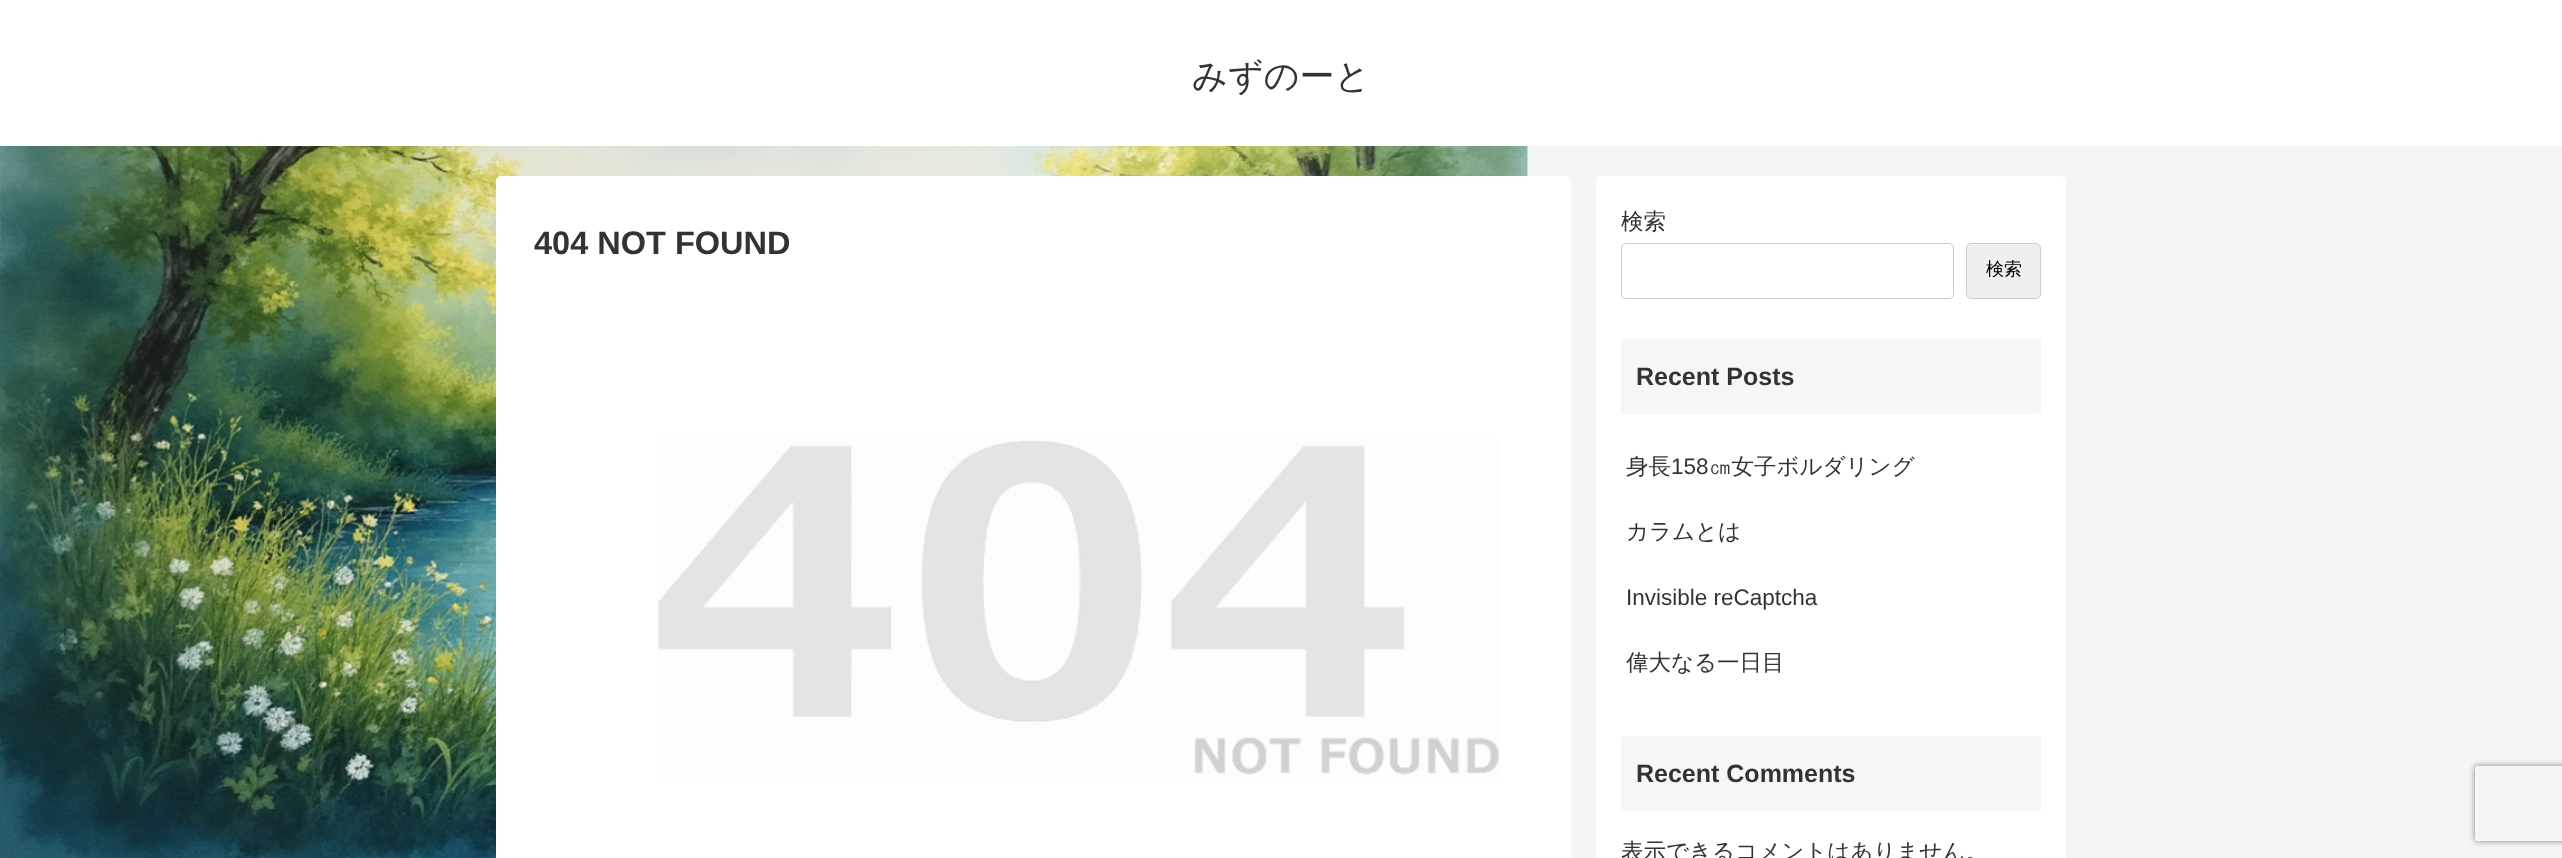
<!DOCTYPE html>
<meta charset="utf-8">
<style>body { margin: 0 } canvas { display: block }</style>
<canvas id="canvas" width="2562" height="858"></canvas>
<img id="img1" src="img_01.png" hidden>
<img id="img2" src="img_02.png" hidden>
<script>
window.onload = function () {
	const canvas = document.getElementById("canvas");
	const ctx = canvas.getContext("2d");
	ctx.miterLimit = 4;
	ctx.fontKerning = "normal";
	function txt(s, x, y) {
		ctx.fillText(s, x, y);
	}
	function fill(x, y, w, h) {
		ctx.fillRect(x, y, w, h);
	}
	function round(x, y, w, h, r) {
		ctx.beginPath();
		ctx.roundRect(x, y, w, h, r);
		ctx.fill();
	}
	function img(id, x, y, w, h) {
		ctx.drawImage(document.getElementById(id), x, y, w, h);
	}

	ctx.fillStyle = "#F4F5F7";
	fill(0, 0, 2562, 858);
	img("img1", 0, 146, 1529, 712);
	ctx.fillStyle = "#FFFFFF";
	fill(0, 0, 2562, 146);
	round(496, 176, 1075, 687, 5);
	img("img2", 657, 439, 843, 339);
	round(1596, 176, 470, 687, 5);
	ctx.beginPath();
	ctx.roundRect(1621.5, 243.5, 332, 55, 4.5);
	ctx.strokeStyle = "#CCCCCC";
	ctx.stroke();
	ctx.fillStyle = "#EFEFEF";
	ctx.beginPath();
	ctx.roundRect(1966.5, 243.5, 74, 55, 4.5);
	ctx.fill();
	ctx.stroke();
	ctx.fillStyle = "#F5F6F7";
	round(1621, 339, 420, 75, 2.5);
	round(1621, 736, 420, 75, 2.5);
	ctx.save();
	ctx.beginPath();
	ctx.moveTo(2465, 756);
	ctx.lineTo(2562, 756);
	ctx.lineTo(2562, 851);
	ctx.lineTo(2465, 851);
	ctx.closePath();
	ctx.moveTo(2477.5, 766);
	ctx.lineTo(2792.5, 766);
	ctx.bezierCurveTo(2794, 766, 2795, 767, 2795, 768.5);
	ctx.lineTo(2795, 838.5);
	ctx.bezierCurveTo(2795, 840, 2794, 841, 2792.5, 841);
	ctx.lineTo(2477.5, 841);
	ctx.bezierCurveTo(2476, 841, 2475, 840, 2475, 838.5);
	ctx.lineTo(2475, 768.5);
	ctx.bezierCurveTo(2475, 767, 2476, 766, 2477.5, 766);
	ctx.closePath();
	ctx.clip("evenodd");
	ctx.fillStyle = "#808080";
	ctx.filter = "blur(3px)";
	ctx.beginPath();
	ctx.roundRect(2475, 766, 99, 75, 2.5);
	ctx.fill();
	ctx.filter = "none";
	ctx.restore();
	ctx.font = "500 35px WenQuanYi Zen Hei";
	ctx.fillStyle = "#333333";
	txt("みずのーと", 1192, 88);
	ctx.font = "bold 32.5px Liberation Sans";
	txt("404 NOT FOUND", 534, 254);
	ctx.font = "500 22.5px WenQuanYi Zen Hei";
	txt("検索", 1621, 229);
	ctx.font = "500 18px WenQuanYi Zen Hei";
	ctx.fillStyle = "#000000";
	txt("検索", 1986, 275);
	ctx.font = "bold 25px Liberation Sans";
	ctx.fillStyle = "#333333";
	txt("Recent Posts", 1636, 385);
	ctx.font = "500 22.5px WenQuanYi Zen Hei";
	txt("身長", 1626, 474);
	ctx.font = "22.5px Liberation Sans";
	txt("158", 1671, 474);
	ctx.font = "500 22.5px WenQuanYi Zen Hei";
	txt("㎝女子ボルダリング", 1709, 474);
	txt("カラムとは", 1626, 539);
	ctx.font = "22.5px Liberation Sans";
	txt("Invisible reCaptcha", 1626, 605);
	ctx.font = "500 22.5px WenQuanYi Zen Hei";
	txt("偉大なる一日目", 1626, 670);
	ctx.font = "bold 25px Liberation Sans";
	txt("Recent Comments", 1636, 782);
	ctx.font = "500 22.5px WenQuanYi Zen Hei";
	txt("表示できるコメントはありません。", 1621, 859);
};
</script>
